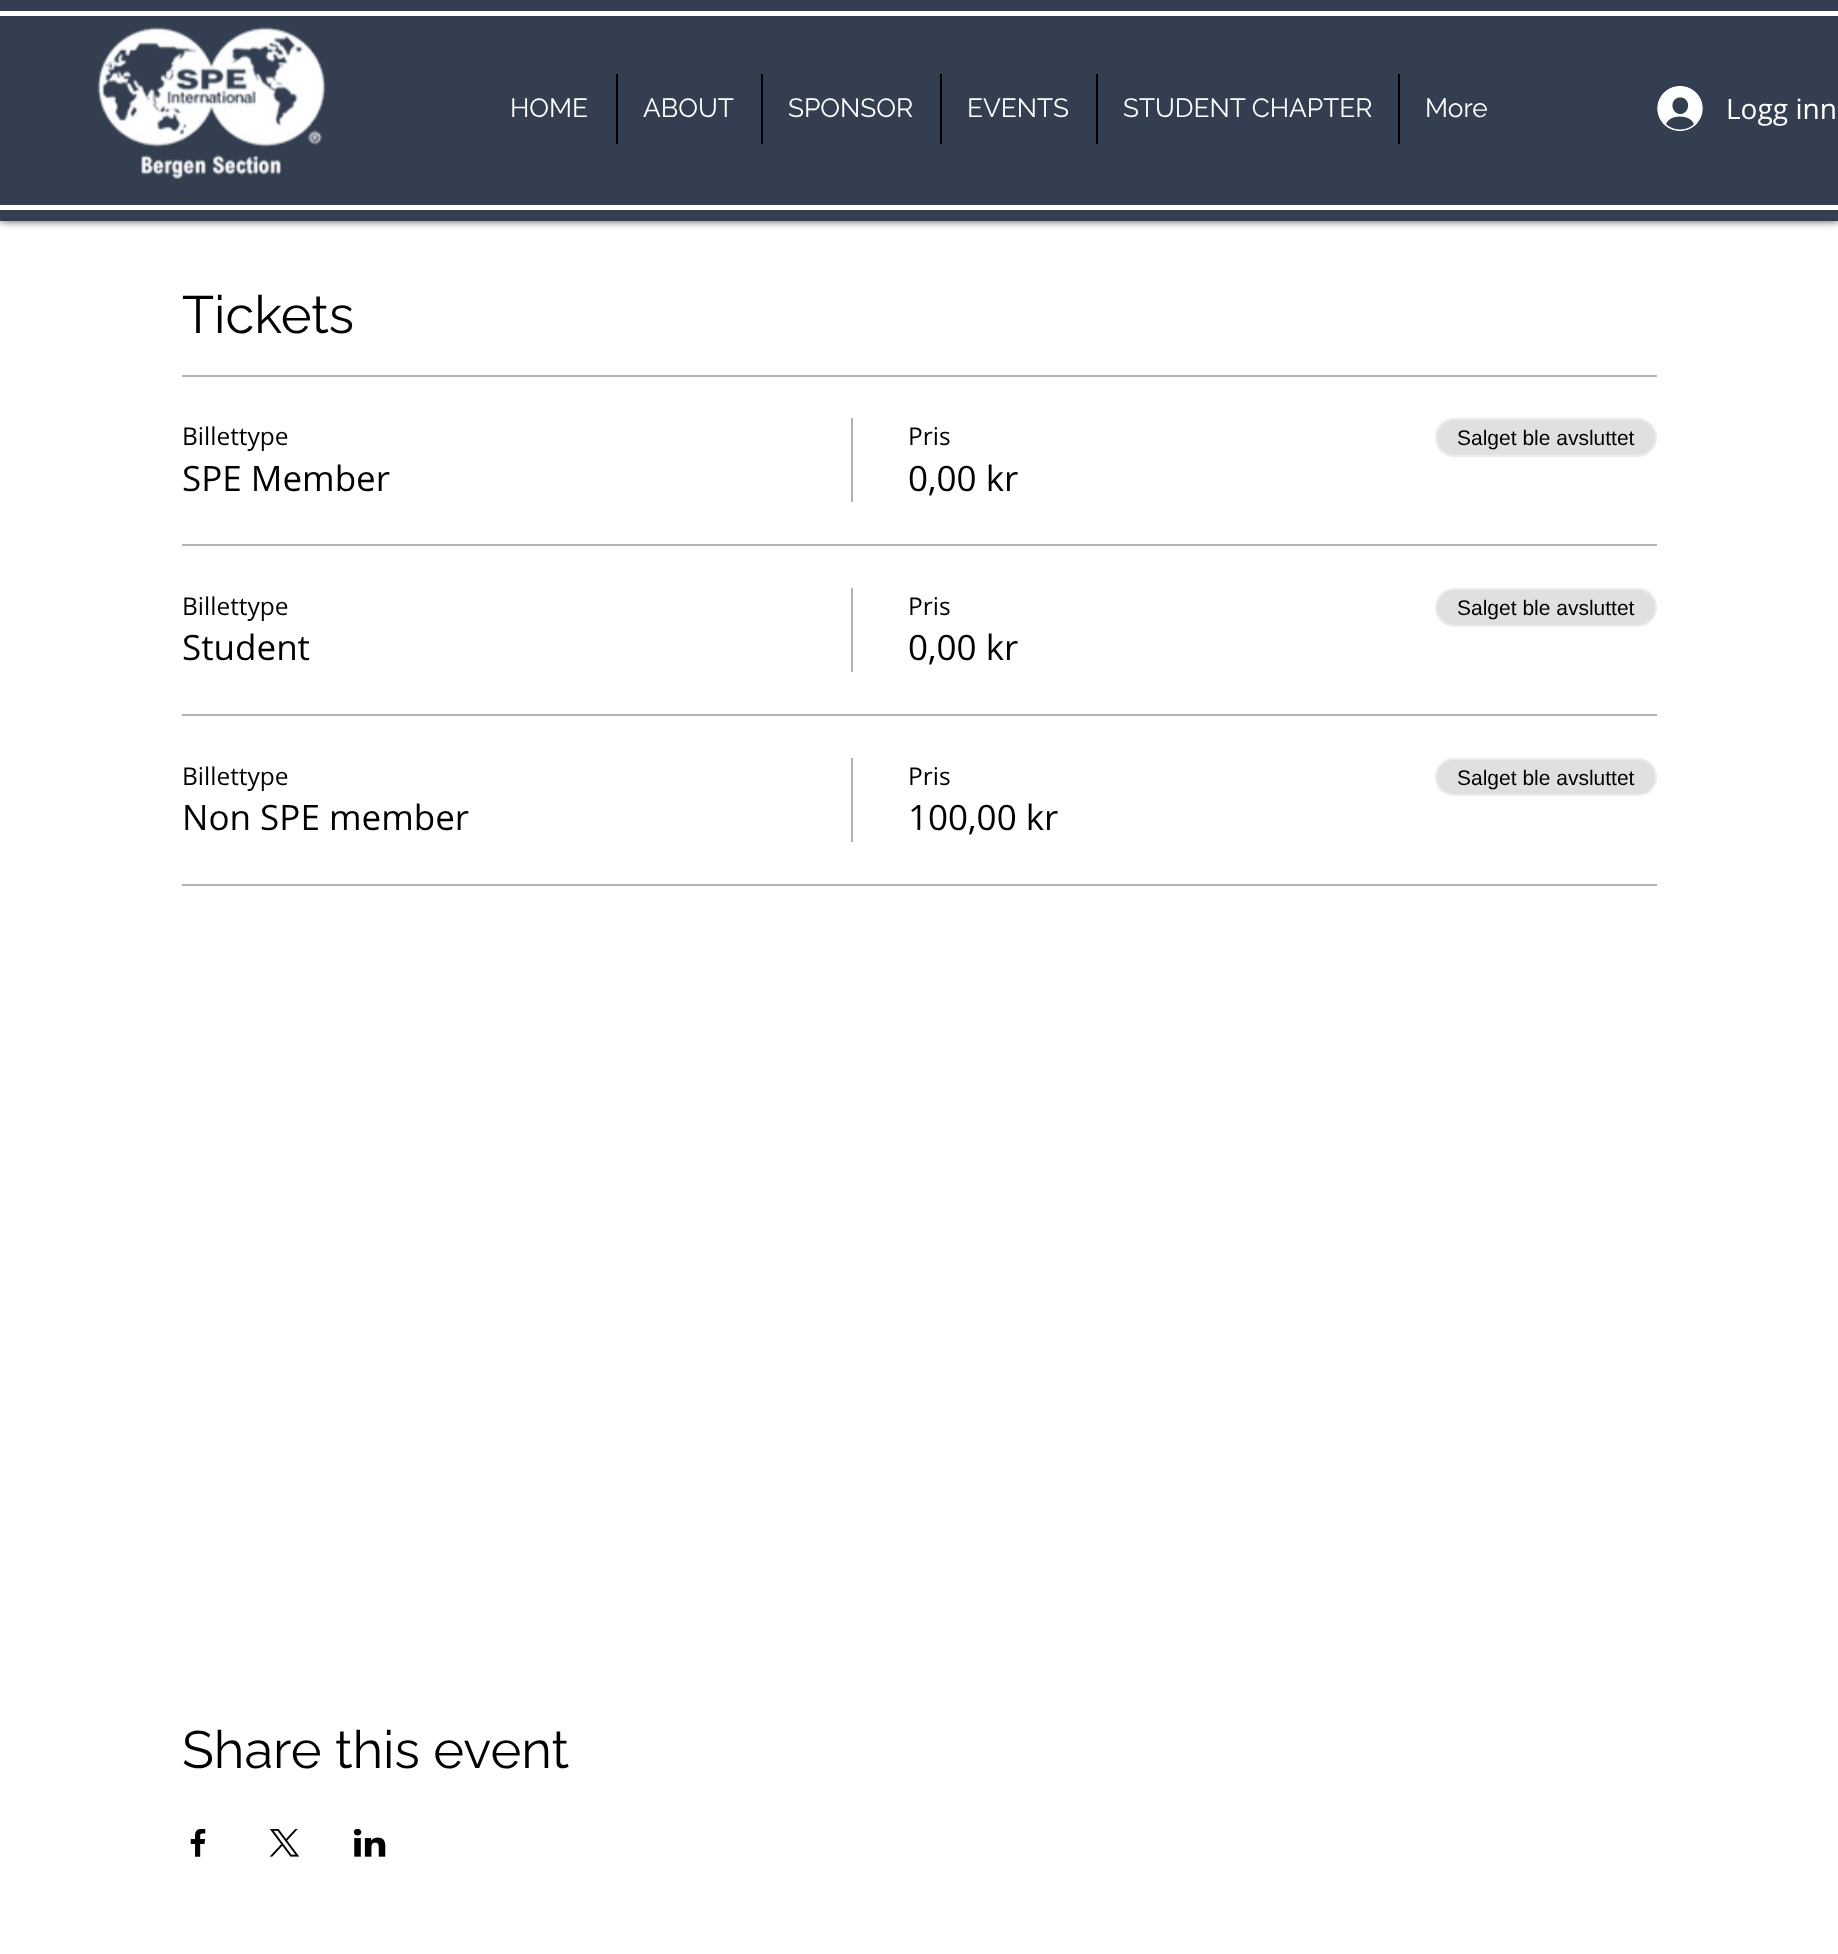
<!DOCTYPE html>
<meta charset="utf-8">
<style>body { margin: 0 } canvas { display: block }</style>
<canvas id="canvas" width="1838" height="1954"></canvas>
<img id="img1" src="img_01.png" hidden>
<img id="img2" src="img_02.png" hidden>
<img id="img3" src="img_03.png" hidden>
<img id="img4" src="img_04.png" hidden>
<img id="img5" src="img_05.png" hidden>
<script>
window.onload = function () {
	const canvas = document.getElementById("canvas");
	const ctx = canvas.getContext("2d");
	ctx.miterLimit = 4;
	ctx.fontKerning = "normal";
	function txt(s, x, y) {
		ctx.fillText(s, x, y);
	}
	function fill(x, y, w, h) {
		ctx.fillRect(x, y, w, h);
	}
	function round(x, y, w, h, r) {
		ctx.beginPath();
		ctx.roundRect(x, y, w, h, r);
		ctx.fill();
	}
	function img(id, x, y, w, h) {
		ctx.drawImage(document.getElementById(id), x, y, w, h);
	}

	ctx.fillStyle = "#FFFFFF";
	fill(0, 0, 1838, 1954);
	ctx.fillStyle = "rgba(0, 0, 0, 0.7)";
	ctx.filter = "blur(4.5px)";
	ctx.beginPath();
	ctx.rect(0, 0, 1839, 221);
	ctx.fill();
	ctx.filter = "none";
	ctx.fillStyle = "#333F50";
	fill(0, 0, 1838, 221);
	ctx.fillStyle = "#FFFFFF";
	fill(0, 11, 1838, 5);
	fill(0, 205, 1838, 5);
	img("img1", 97, 27, 229, 152);
	ctx.fillStyle = "#000000";
	fill(616, 74, 2, 70);
	fill(761, 74, 2, 70);
	fill(940, 74, 2, 70);
	fill(1096, 74, 2, 70);
	fill(1398, 74, 2, 70);
	img("img2", 1657, 86, 46, 45);
	ctx.fillStyle = "#B3B3B3";
	fill(182, 375, 1475, 2);
	fill(182, 544, 1475, 2);
	fill(851, 418, 2, 84);
	ctx.fillStyle = "#E0E0E0";
	round(1435, 418, 222, 39, 19.5);
	ctx.beginPath();
	ctx.roundRect(1436, 419, 220, 37, 18.5);
	ctx.strokeStyle = "rgba(255, 255, 255, 0.4)";
	ctx.lineWidth = 2;
	ctx.stroke();
	ctx.fillStyle = "#B3B3B3";
	fill(182, 714, 1475, 2);
	fill(851, 588, 2, 84);
	ctx.fillStyle = "#E0E0E0";
	round(1435, 588, 222, 39, 19.5);
	ctx.beginPath();
	ctx.roundRect(1436, 589, 220, 37, 18.5);
	ctx.stroke();
	ctx.fillStyle = "#B3B3B3";
	fill(182, 884, 1475, 2);
	fill(851, 758, 2, 84);
	ctx.fillStyle = "#E0E0E0";
	round(1435, 758, 222, 38, 19);
	ctx.beginPath();
	ctx.roundRect(1436, 759, 220, 36, 18);
	ctx.stroke();
	img("img3", 190, 1829, 16, 28);
	img("img4", 269, 1829, 31, 28);
	img("img5", 354, 1829, 32, 28);
	ctx.font = "26.25px Raleway";
	ctx.fillStyle = "#FFFFFF";
	txt("HOME", 510, 117);
	txt("ABOUT", 643, 117);
	txt("SPONSOR", 788, 117);
	txt("EVENTS", 967, 117);
	txt("STUDENT CHAPTER", 1123, 117);
	txt("More", 1425, 117);
	ctx.font = "28px Open Sans";
	txt("Logg inn", 1726, 119);
	ctx.font = "52.5px Raleway";
	ctx.fillStyle = "#000000";
	txt("Tickets", 182, 333);
	ctx.font = "24.5px Open Sans";
	txt("Billettype", 182, 445);
	ctx.font = "35px Open Sans";
	txt("SPE Member", 182, 491);
	ctx.font = "24.5px Open Sans";
	txt("Pris", 908, 445);
	ctx.font = "35px Open Sans";
	txt("0,00 kr", 908, 491);
	ctx.font = "21px Liberation Sans";
	txt("Salget ble avsluttet", 1457, 445);
	ctx.font = "24.5px Open Sans";
	txt("Billettype", 182, 615);
	ctx.font = "35px Open Sans";
	txt("Student", 182, 660);
	ctx.font = "24.5px Open Sans";
	txt("Pris", 908, 615);
	ctx.font = "35px Open Sans";
	txt("0,00 kr", 908, 660);
	ctx.font = "21px Liberation Sans";
	txt("Salget ble avsluttet", 1457, 615);
	ctx.font = "24.5px Open Sans";
	txt("Billettype", 182, 785);
	ctx.font = "35px Open Sans";
	txt("Non SPE member", 182, 830);
	ctx.font = "24.5px Open Sans";
	txt("Pris", 908, 785);
	ctx.font = "35px Open Sans";
	txt("100,00 kr", 908, 830);
	ctx.font = "21px Liberation Sans";
	txt("Salget ble avsluttet", 1457, 785);
	ctx.font = "52.5px Raleway";
	txt("Share this event", 182, 1768);
};
</script>
